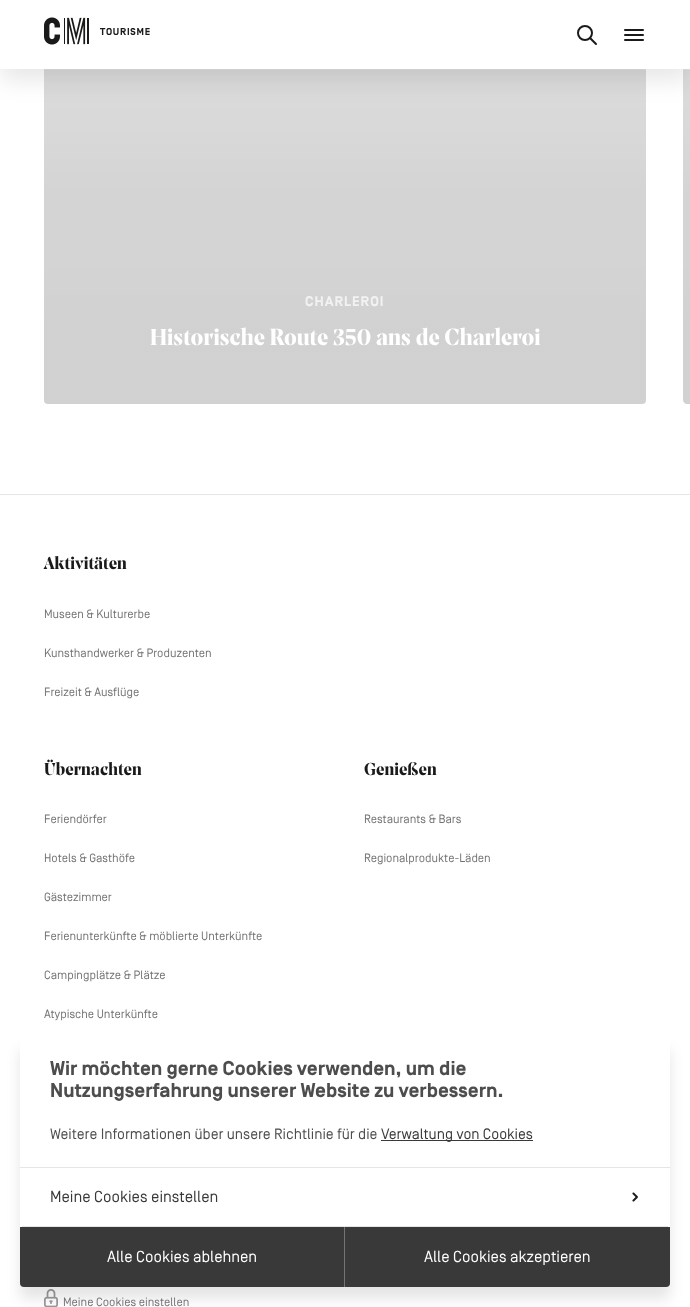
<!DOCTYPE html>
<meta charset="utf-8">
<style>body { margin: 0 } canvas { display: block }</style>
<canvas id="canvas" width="690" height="1307"></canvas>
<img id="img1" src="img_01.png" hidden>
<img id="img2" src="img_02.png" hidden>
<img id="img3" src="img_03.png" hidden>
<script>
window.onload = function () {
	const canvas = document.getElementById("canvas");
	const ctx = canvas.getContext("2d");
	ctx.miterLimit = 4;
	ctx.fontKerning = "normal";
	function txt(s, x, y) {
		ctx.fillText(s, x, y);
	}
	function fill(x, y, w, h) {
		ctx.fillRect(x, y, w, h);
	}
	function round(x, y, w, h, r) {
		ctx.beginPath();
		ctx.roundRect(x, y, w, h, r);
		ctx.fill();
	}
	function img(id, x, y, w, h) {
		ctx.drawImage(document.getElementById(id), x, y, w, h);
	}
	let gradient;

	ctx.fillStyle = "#FFFFFF";
	fill(0, 0, 690, 1307);
	ctx.fillStyle = "#E9E9E9";
	round(44, -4, 602, 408, 4);
	gradient = ctx.createLinearGradient(345, -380, 345, 404);
	gradient.addColorStop(0, "rgba(0, 0, 0, 0)");
	gradient.addColorStop(0.1, "rgba(0, 0, 0, 0)");
	gradient.addColorStop(0.19, "rgba(0, 0, 0, 0.01)");
	gradient.addColorStop(0.27, "rgba(0, 0, 0, 0.02)");
	gradient.addColorStop(0.35, "rgba(0, 0, 0, 0.03)");
	gradient.addColorStop(0.43, "rgba(0, 0, 0, 0.04)");
	gradient.addColorStop(0.5, "rgba(0, 0, 0, 0.05)");
	gradient.addColorStop(0.57, "rgba(0, 0, 0, 0.06)");
	gradient.addColorStop(0.65, "rgba(0, 0, 0, 0.07)");
	gradient.addColorStop(0.73, "rgba(0, 0, 0, 0.09)");
	gradient.addColorStop(0.81, "rgba(0, 0, 0, 0.09)");
	gradient.addColorStop(0.9, "rgba(0, 0, 0, 0.1)");
	gradient.addColorStop(1, "rgba(0, 0, 0, 0.1)");
	ctx.fillStyle = gradient;
	round(44, -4, 602, 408, 4);
	ctx.fillStyle = "#E9E9E9";
	ctx.beginPath();
	ctx.moveTo(687, -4);
	ctx.lineTo(690, -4);
	ctx.lineTo(690, 404);
	ctx.lineTo(687, 404);
	ctx.bezierCurveTo(685, 404, 683, 402, 683, 400);
	ctx.lineTo(683, 0);
	ctx.bezierCurveTo(683, -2, 685, -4, 687, -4);
	ctx.closePath();
	ctx.fill();
	gradient = ctx.createLinearGradient(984, -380, 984, 404);
	gradient.addColorStop(0, "rgba(0, 0, 0, 0)");
	gradient.addColorStop(0.1, "rgba(0, 0, 0, 0)");
	gradient.addColorStop(0.19, "rgba(0, 0, 0, 0.01)");
	gradient.addColorStop(0.27, "rgba(0, 0, 0, 0.02)");
	gradient.addColorStop(0.35, "rgba(0, 0, 0, 0.03)");
	gradient.addColorStop(0.43, "rgba(0, 0, 0, 0.04)");
	gradient.addColorStop(0.5, "rgba(0, 0, 0, 0.05)");
	gradient.addColorStop(0.57, "rgba(0, 0, 0, 0.06)");
	gradient.addColorStop(0.65, "rgba(0, 0, 0, 0.07)");
	gradient.addColorStop(0.73, "rgba(0, 0, 0, 0.09)");
	gradient.addColorStop(0.81, "rgba(0, 0, 0, 0.09)");
	gradient.addColorStop(0.9, "rgba(0, 0, 0, 0.1)");
	gradient.addColorStop(1, "rgba(0, 0, 0, 0.1)");
	ctx.fillStyle = gradient;
	ctx.beginPath();
	ctx.moveTo(687, -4);
	ctx.lineTo(690, -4);
	ctx.lineTo(690, 404);
	ctx.lineTo(687, 404);
	ctx.bezierCurveTo(685, 404, 683, 402, 683, 400);
	ctx.lineTo(683, 0);
	ctx.bezierCurveTo(683, -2, 685, -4, 687, -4);
	ctx.closePath();
	ctx.fill();
	ctx.fillStyle = "rgba(255, 255, 255, 0.2)";
	fill(44, 69, 646, 1);
	ctx.fillStyle = "rgba(0, 0, 0, 0.1)";
	ctx.filter = "blur(12px)";
	ctx.beginPath();
	ctx.rect(0, 10, 690, 69);
	ctx.fill();
	ctx.filter = "none";
	ctx.fillStyle = "#FFFFFF";
	fill(0, 0, 690, 69);
	img("img1", 44, 17, 45, 28);
	ctx.beginPath();
	ctx.arc(585, 33, 7, 0, Math.PI * 2);
	ctx.strokeStyle = "#1A1A19";
	ctx.lineWidth = 2;
	ctx.stroke();
	ctx.beginPath();
	ctx.moveTo(590, 38);
	ctx.lineTo(596, 44);
	ctx.lineCap = "round";
	ctx.lineJoin = "round";
	ctx.stroke();
	ctx.fillStyle = "#1A1A19";
	round(624, 29, 20, 2, 1);
	round(624, 34, 20, 2, 1);
	round(624, 39, 20, 2, 1);
	ctx.fillStyle = "#E6E6E6";
	fill(0, 494, 690, 1);
	img("img2", 44, 1289, 14, 18);
	ctx.fillStyle = "rgba(0, 0, 0, 0.1)";
	ctx.filter = "blur(7px)";
	ctx.beginPath();
	ctx.roundRect(20, 1050, 650, 249, 4);
	ctx.fill();
	ctx.filter = "none";
	ctx.fillStyle = "#FFFFFF";
	round(20, 1038, 650, 249, 4);
	ctx.fillStyle = "#393939";
	fill(381, 1140, 152, 1);
	ctx.fillStyle = "#E5E5E5";
	fill(20, 1167, 650, 1);
	fill(22, 1226, 646, 1);
	img("img3", 632, 1192, 6, 10);
	ctx.fillStyle = "#393939";
	ctx.beginPath();
	ctx.roundRect(20, 1227, 325, 60, [0, 0, 0, 4]);
	ctx.fill();
	ctx.fillStyle = "#747474";
	fill(344, 1227, 1, 60);
	ctx.fillStyle = "#393939";
	ctx.beginPath();
	ctx.roundRect(345, 1227, 325, 60, [0, 0, 4, 0]);
	ctx.fill();
	ctx.letterSpacing = "0.75px";
	ctx.font = "bold 10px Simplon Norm";
	ctx.fillStyle = "#1A1A19";
	txt("TOURISME", 100, 35);
	ctx.letterSpacing = "1px";
	ctx.font = "bold 14px Simplon Norm";
	ctx.fillStyle = "#F2F2F2";
	txt("CHARLEROI", 305, 306);
	ctx.letterSpacing = "0px";
	ctx.font = "bold 24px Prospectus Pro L";
	ctx.fillStyle = "#FFFFFF";
	txt("Historische Route 350 ans de Charleroi", 150, 345);
	ctx.font = "bold 18px Prospectus Pro L";
	ctx.fillStyle = "#1A1A19";
	txt("Aktivitäten", 44, 569);
	ctx.font = "12px Simplon Norm";
	ctx.fillStyle = "#737373";
	txt("Museen & Kulturerbe", 44, 618);
	txt("Kunsthandwerker & Produzenten", 44, 657);
	txt("Freizeit & Ausflüge", 44, 696);
	ctx.font = "bold 18px Prospectus Pro L";
	ctx.fillStyle = "#1A1A19";
	txt("Übernachten", 44, 775);
	ctx.font = "12px Simplon Norm";
	ctx.fillStyle = "#737373";
	txt("Feriendörfer", 44, 823);
	txt("Hotels & Gasthöfe", 44, 862);
	txt("Gästezimmer", 44, 901);
	txt("Ferienunterkünfte & möblierte Unterkünfte", 44, 940);
	txt("Campingplätze & Plätze", 44, 979);
	txt("Atypische Unterkünfte", 44, 1018);
	ctx.font = "bold 18px Prospectus Pro L";
	ctx.fillStyle = "#1A1A19";
	txt("Genießen", 364, 775);
	ctx.font = "12px Simplon Norm";
	ctx.fillStyle = "#737373";
	txt("Restaurants & Bars", 364, 823);
	txt("Regionalprodukte-Läden", 364, 862);
	txt("Meine Cookies einstellen", 63, 1306);
	ctx.font = "bold 20px Simplon Norm";
	ctx.fillStyle = "#4D4D4D";
	txt("Wir möchten gerne Cookies verwenden, um die", 50, 1075);
	txt("Nutzungserfahrung unserer Website zu verbessern.", 50, 1097);
	ctx.font = "15px Simplon Norm";
	txt("Weitere Informationen über unsere Richtlinie für die", 50, 1139);
	ctx.fillStyle = "#393939";
	txt("Verwaltung von Cookies", 381, 1139);
	ctx.font = "16px Simplon Norm";
	txt("Meine Cookies einstellen", 50, 1202);
	ctx.fillStyle = "#FFFFFF";
	txt("Alle Cookies ablehnen", 107, 1262);
	txt("Alle Cookies akzeptieren", 424, 1262);
};
</script>
